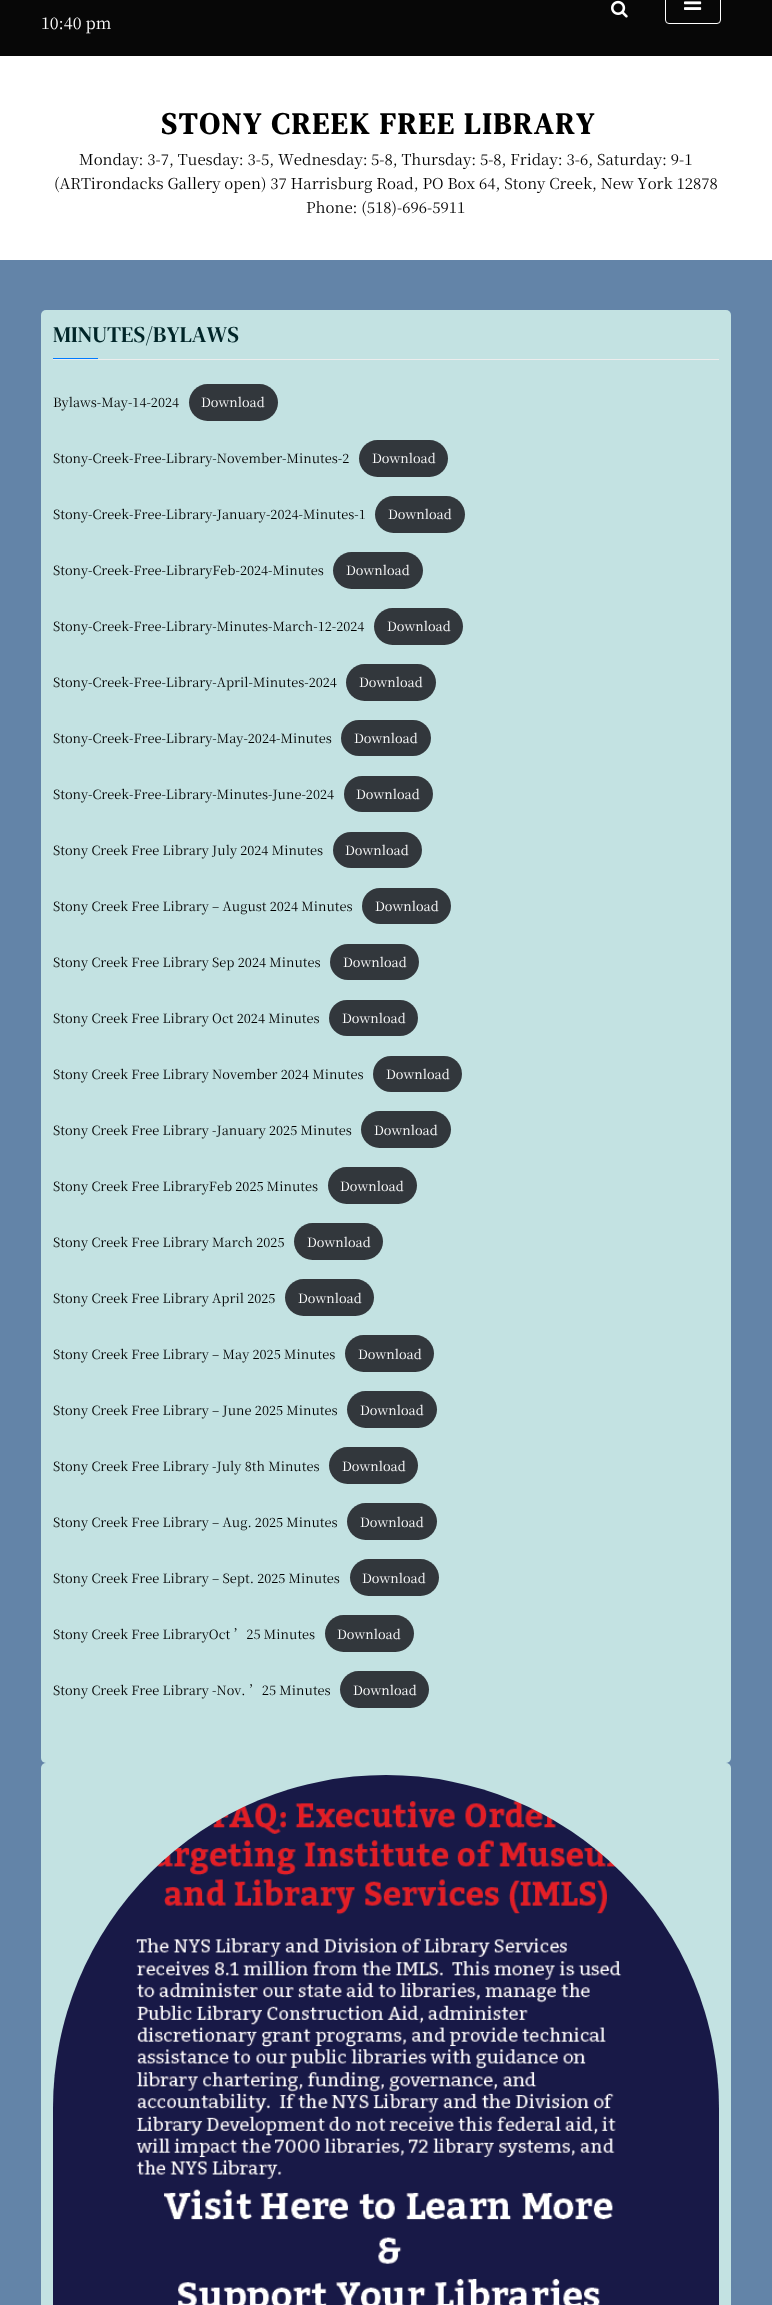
<!DOCTYPE html>
<meta charset="utf-8">
<style>body { margin: 0 } canvas { display: block }</style>
<canvas id="canvas" width="772" height="2305"></canvas>
<img id="img1" src="img_01.png" hidden>
<img id="img2" src="img_02.png" hidden>
<img id="img3" src="img_03.png" hidden>
<script>
window.onload = function () {
	const canvas = document.getElementById("canvas");
	const ctx = canvas.getContext("2d");
	ctx.miterLimit = 4;
	ctx.fontKerning = "none";
	function txt(s, x, y) {
		ctx.fillText(s, x, y);
	}
	function fill(x, y, w, h) {
		ctx.fillRect(x, y, w, h);
	}
	function round(x, y, w, h, r) {
		ctx.beginPath();
		ctx.roundRect(x, y, w, h, r);
		ctx.fill();
	}
	function img(id, x, y, w, h) {
		ctx.drawImage(document.getElementById(id), x, y, w, h);
	}

	ctx.fillStyle = "#6384A8";
	fill(0, 0, 772, 2305);
	ctx.fillStyle = "#FFFFFF";
	fill(0, 56, 772, 204);
	ctx.fillStyle = "#070707";
	fill(0, 0, 772, 56);
	img("img1", 611, 0, 17, 18);
	ctx.beginPath();
	ctx.roundRect(665.5, -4.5, 55, 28, 3.5);
	ctx.strokeStyle = "#FFFFFF";
	ctx.stroke();
	img("img2", 684, 1, 18, 9);
	ctx.fillStyle = "#C3E2E2";
	round(41, 310, 690, 1453, 5);
	ctx.fillStyle = "#EDEDED";
	fill(53, 359, 666, 1);
	ctx.fillStyle = "#007BFF";
	fill(53, 358, 45, 1);
	ctx.fillStyle = "#32373C";
	round(189, 384, 89, 37, 18.5);
	round(359, 440, 89, 37, 18.5);
	round(375, 496, 90, 37, 18.5);
	round(333, 552, 90, 37, 18.5);
	round(374, 608, 89, 37, 18.5);
	round(346, 664, 90, 37, 18.5);
	round(341, 720, 90, 36, 18);
	round(344, 776, 89, 36, 18);
	round(333, 832, 89, 36, 18);
	round(362, 888, 89, 36, 18);
	round(330, 944, 89, 36, 18);
	round(329, 1000, 89, 36, 18);
	round(373, 1056, 89, 36, 18);
	round(361, 1111, 90, 37, 18.5);
	round(328, 1167, 89, 37, 18.5);
	round(294, 1223, 89, 37, 18.5);
	round(285, 1279, 89, 37, 18.5);
	round(345, 1335, 89, 37, 18.5);
	round(347, 1391, 90, 37, 18.5);
	round(329, 1447, 89, 37, 18.5);
	round(347, 1503, 90, 37, 18.5);
	round(350, 1559, 89, 37, 18.5);
	round(325, 1615, 89, 37, 18.5);
	round(340, 1671, 89, 37, 18.5);
	ctx.fillStyle = "#C3E2E2";
	round(41, 1763, 690, 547, 5);
	img("img3", 53, 1775, 666, 530);
	ctx.font = "16px Noto Serif TC";
	ctx.fillStyle = "#FFFFFF";
	txt("10:40 pm", 41, 29);
	ctx.letterSpacing = "2px";
	ctx.font = "bold 30px DM Serif Text";
	ctx.fillStyle = "#000000";
	txt("STONY CREEK FREE LIBRARY", 161, 134);
	ctx.letterSpacing = "0px";
	ctx.font = "15px Noto Serif TC";
	txt("Monday: 3-7, Tuesday: 3-5, Wednesday:", 79, 165);
	txt("5-8, Thursday: 5-8, Friday: 3-6, Saturday: 9-1", 371, 165);
	txt("(ARTirondacks Gallery open) 37 Harrisburg Road, PO Box", 54, 189);
	txt("64, Stony Creek, New York 12878", 479, 189);
	txt("Phone: (518)-696-5911", 306, 213);
	ctx.font = "22.5px DM Serif Text";
	ctx.fillStyle = "#002528";
	txt("MINUTES/BYLAWS", 53, 342);
	ctx.font = "12.8px Noto Serif TC";
	ctx.fillStyle = "#000000";
	txt("Bylaws-May-14-2024", 53, 407);
	ctx.fillStyle = "#FFFFFF";
	txt("Download", 201, 407);
	ctx.fillStyle = "#000000";
	txt("Stony-Creek-Free-Library-November-Minutes-2", 53, 463);
	ctx.fillStyle = "#FFFFFF";
	txt("Download", 372, 463);
	ctx.fillStyle = "#000000";
	txt("Stony-Creek-Free-Library-January-2024-Minutes-1", 53, 519);
	ctx.fillStyle = "#FFFFFF";
	txt("Download", 388, 519);
	ctx.fillStyle = "#000000";
	txt("Stony-Creek-Free-LibraryFeb-2024-Minutes", 53, 575);
	ctx.fillStyle = "#FFFFFF";
	txt("Download", 346, 575);
	ctx.fillStyle = "#000000";
	txt("Stony-Creek-Free-Library-Minutes-March-12-2024", 53, 631);
	ctx.fillStyle = "#FFFFFF";
	txt("Download", 387, 631);
	ctx.fillStyle = "#000000";
	txt("Stony-Creek-Free-Library-April-Minutes-2024", 53, 687);
	ctx.fillStyle = "#FFFFFF";
	txt("Download", 359, 687);
	ctx.fillStyle = "#000000";
	txt("Stony-Creek-Free-Library-May-2024-Minutes", 53, 743);
	ctx.fillStyle = "#FFFFFF";
	txt("Download", 354, 743);
	ctx.fillStyle = "#000000";
	txt("Stony-Creek-Free-Library-Minutes-June-2024", 53, 799);
	ctx.fillStyle = "#FFFFFF";
	txt("Download", 356, 799);
	ctx.fillStyle = "#000000";
	txt("Stony Creek Free Library July 2024 Minutes", 53, 855);
	ctx.fillStyle = "#FFFFFF";
	txt("Download", 345, 855);
	ctx.fillStyle = "#000000";
	txt("Stony Creek Free Library – August 2024 Minutes", 53, 911);
	ctx.fillStyle = "#FFFFFF";
	txt("Download", 375, 911);
	ctx.fillStyle = "#000000";
	txt("Stony Creek Free Library Sep 2024 Minutes", 53, 967);
	ctx.fillStyle = "#FFFFFF";
	txt("Download", 343, 967);
	ctx.fillStyle = "#000000";
	txt("Stony Creek Free Library Oct 2024 Minutes", 53, 1023);
	ctx.fillStyle = "#FFFFFF";
	txt("Download", 342, 1023);
	ctx.fillStyle = "#000000";
	txt("Stony Creek Free Library November 2024 Minutes", 53, 1079);
	ctx.fillStyle = "#FFFFFF";
	txt("Download", 386, 1079);
	ctx.fillStyle = "#000000";
	txt("Stony Creek Free Library -January 2025 Minutes", 53, 1135);
	ctx.fillStyle = "#FFFFFF";
	txt("Download", 374, 1135);
	ctx.fillStyle = "#000000";
	txt("Stony Creek Free LibraryFeb 2025 Minutes", 53, 1191);
	ctx.fillStyle = "#FFFFFF";
	txt("Download", 340, 1191);
	ctx.fillStyle = "#000000";
	txt("Stony Creek Free Library March 2025", 53, 1247);
	ctx.fillStyle = "#FFFFFF";
	txt("Download", 307, 1247);
	ctx.fillStyle = "#000000";
	txt("Stony Creek Free Library April 2025", 53, 1303);
	ctx.fillStyle = "#FFFFFF";
	txt("Download", 298, 1303);
	ctx.fillStyle = "#000000";
	txt("Stony Creek Free Library – May 2025 Minutes", 53, 1359);
	ctx.fillStyle = "#FFFFFF";
	txt("Download", 358, 1359);
	ctx.fillStyle = "#000000";
	txt("Stony Creek Free Library – June 2025 Minutes", 53, 1415);
	ctx.fillStyle = "#FFFFFF";
	txt("Download", 360, 1415);
	ctx.fillStyle = "#000000";
	txt("Stony Creek Free Library -July 8th Minutes", 53, 1471);
	ctx.fillStyle = "#FFFFFF";
	txt("Download", 342, 1471);
	ctx.fillStyle = "#000000";
	txt("Stony Creek Free Library – Aug. 2025 Minutes", 53, 1527);
	ctx.fillStyle = "#FFFFFF";
	txt("Download", 360, 1527);
	ctx.fillStyle = "#000000";
	txt("Stony Creek Free Library – Sept. 2025 Minutes", 53, 1583);
	ctx.fillStyle = "#FFFFFF";
	txt("Download", 362, 1583);
	ctx.fillStyle = "#000000";
	txt("Stony Creek Free LibraryOct ’25 Minutes", 53, 1639);
	ctx.fillStyle = "#FFFFFF";
	txt("Download", 337, 1639);
	ctx.fillStyle = "#000000";
	txt("Stony Creek Free Library -Nov.", 53, 1695);
	txt("’25 Minutes", 249, 1695);
	ctx.fillStyle = "#FFFFFF";
	txt("Download", 353, 1695);
};
</script>
